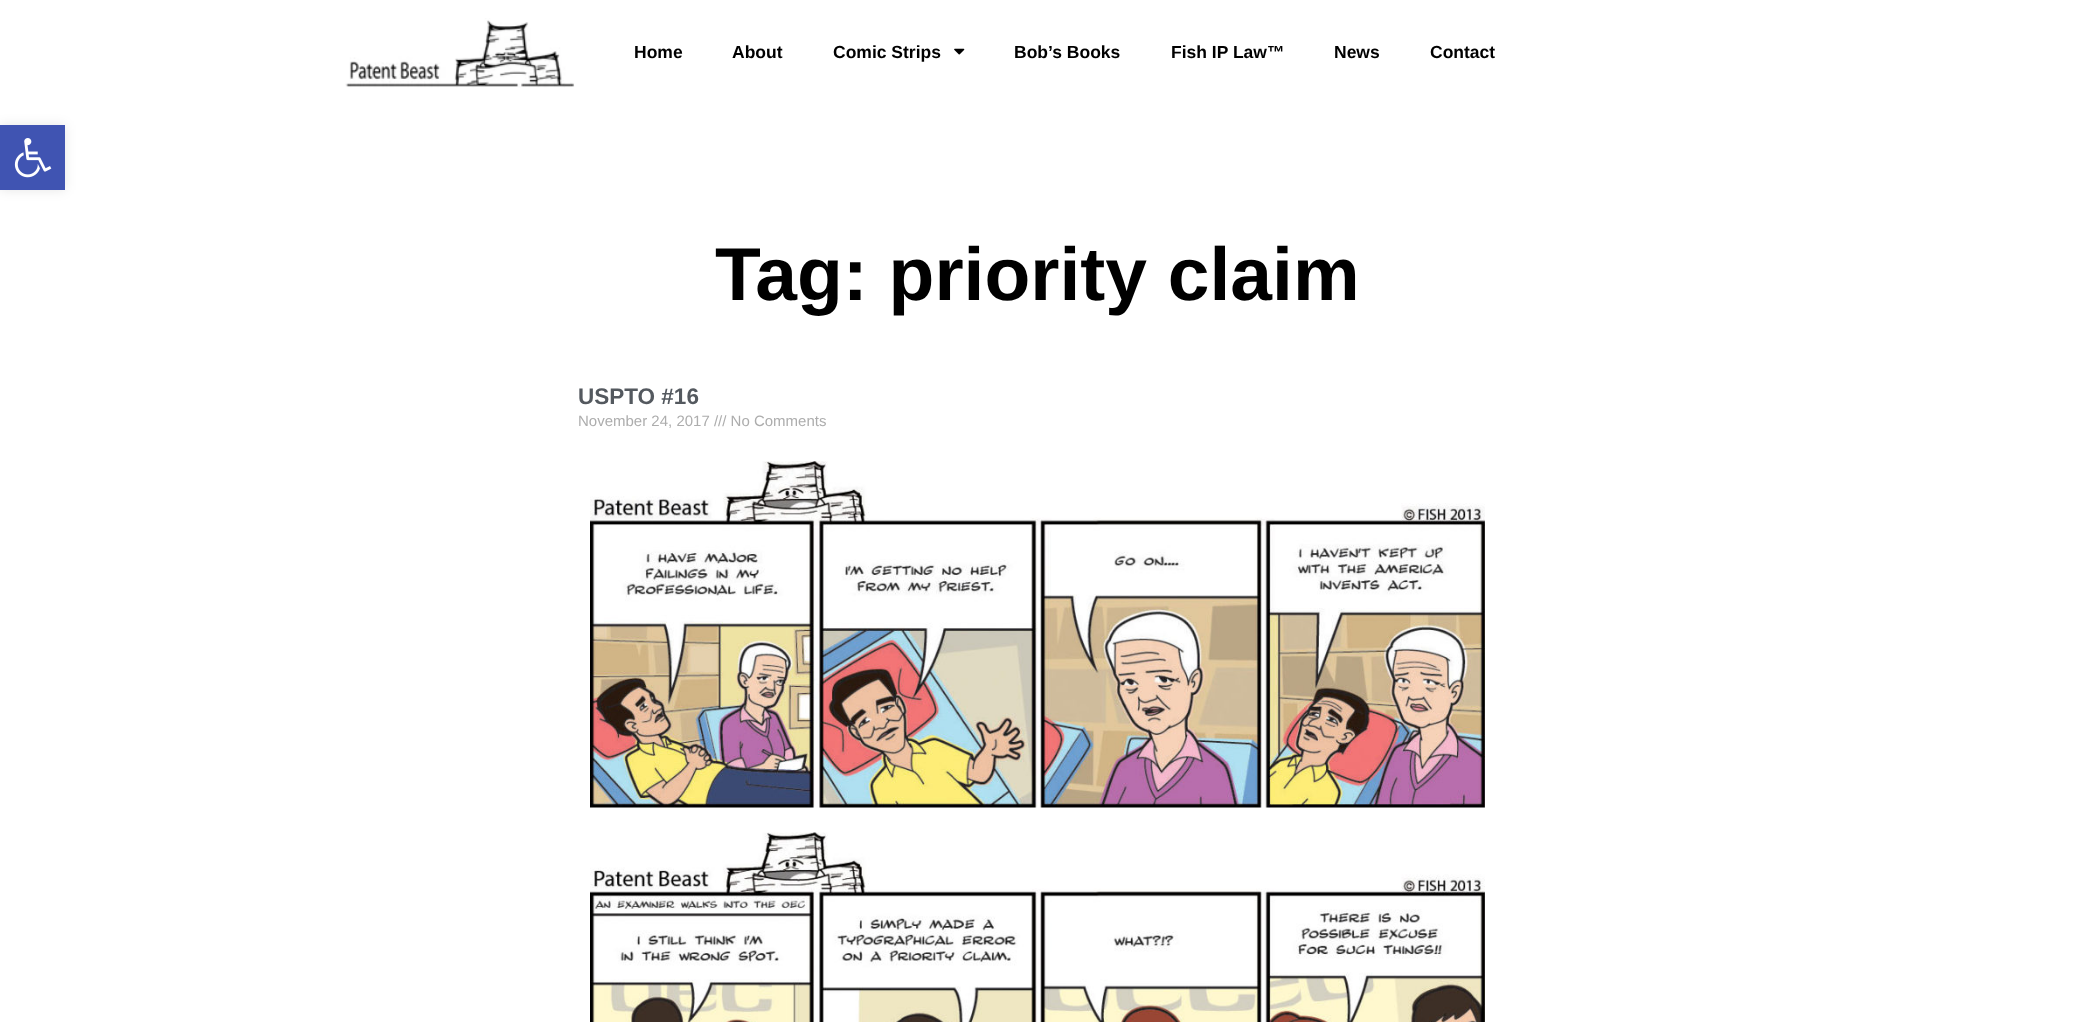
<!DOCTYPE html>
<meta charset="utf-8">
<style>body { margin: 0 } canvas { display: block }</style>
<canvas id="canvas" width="2075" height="1022"></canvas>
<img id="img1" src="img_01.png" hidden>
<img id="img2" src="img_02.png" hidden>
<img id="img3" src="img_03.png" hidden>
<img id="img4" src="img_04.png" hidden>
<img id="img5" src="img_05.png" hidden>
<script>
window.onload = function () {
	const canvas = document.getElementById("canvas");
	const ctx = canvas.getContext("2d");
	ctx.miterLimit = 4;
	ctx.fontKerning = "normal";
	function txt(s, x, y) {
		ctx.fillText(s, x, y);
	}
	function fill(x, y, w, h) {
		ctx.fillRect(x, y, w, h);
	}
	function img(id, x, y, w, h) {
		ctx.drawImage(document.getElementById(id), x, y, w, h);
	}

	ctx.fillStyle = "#FFFFFF";
	fill(0, 0, 2075, 1022);
	ctx.fillStyle = "rgba(0, 0, 0, 0.1)";
	ctx.filter = "blur(6px)";
	ctx.beginPath();
	ctx.rect(0, 125, 65, 65);
	ctx.fill();
	ctx.filter = "none";
	ctx.fillStyle = "#4054B2";
	fill(0, 125, 65, 65);
	img("img1", 14, 138, 38, 40);
	img("img2", 345, 18, 230, 70);
	img("img3", 954, 48, 11, 7);
	img("img4", 590, 461, 895, 347);
	img("img5", 590, 832, 895, 190);
	ctx.font = "bold 17.5px Liberation Sans";
	ctx.fillStyle = "#000000";
	txt("Home", 634, 58);
	txt("About", 732, 58);
	txt("Comic Strips", 833, 58);
	txt("Bob’s Books", 1014, 58);
	txt("Fish IP Law™", 1171, 58);
	txt("News", 1334, 58);
	txt("Contact", 1430, 58);
	ctx.font = "bold 75px Liberation Sans";
	txt("Tag: priority claim", 715, 300);
	ctx.font = "bold 22.5px Liberation Sans";
	ctx.fillStyle = "#54595F";
	txt("USPTO #16", 578, 404);
	ctx.font = "15px Liberation Sans";
	ctx.fillStyle = "#ADADAD";
	txt("November 24, 2017 /// No Comments", 578, 426);
};
</script>
